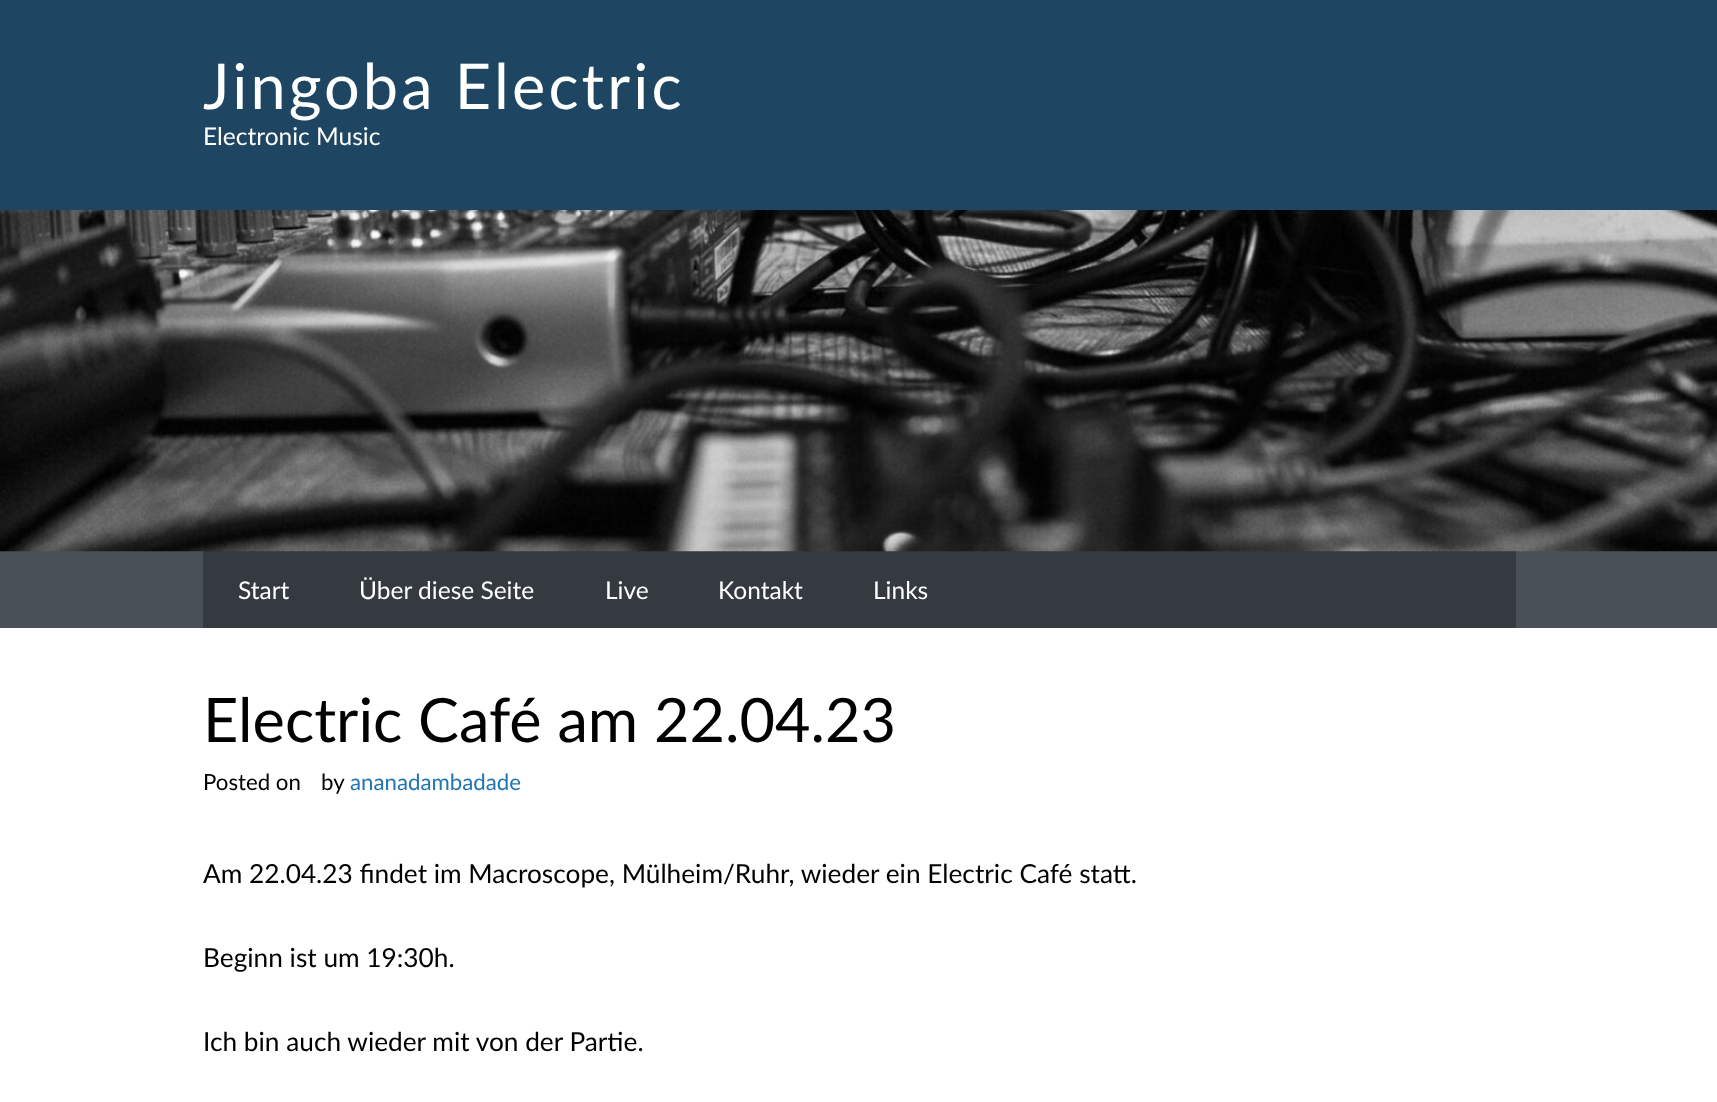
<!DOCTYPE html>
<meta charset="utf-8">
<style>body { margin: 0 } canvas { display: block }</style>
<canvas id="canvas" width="1717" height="1102"></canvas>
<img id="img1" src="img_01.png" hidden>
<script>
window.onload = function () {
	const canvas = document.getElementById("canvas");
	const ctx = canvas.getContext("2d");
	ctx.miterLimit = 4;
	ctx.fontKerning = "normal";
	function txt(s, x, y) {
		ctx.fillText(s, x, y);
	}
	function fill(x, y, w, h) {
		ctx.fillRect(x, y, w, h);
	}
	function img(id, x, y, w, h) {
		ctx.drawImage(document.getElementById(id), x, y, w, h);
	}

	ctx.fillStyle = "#FFFFFF";
	fill(0, 0, 1717, 1102);
	ctx.fillStyle = "#1E4663";
	fill(0, 0, 1717, 210);
	ctx.fillStyle = "#495057";
	fill(0, 551, 1717, 77);
	ctx.fillStyle = "#343A40";
	fill(203, 551, 1313, 77);
	img("img1", 0, 210, 1717, 342);
	ctx.letterSpacing = "3.1px";
	ctx.font = "63px Lato";
	ctx.fillStyle = "#FFFFFF";
	txt("Jingoba Electric", 203, 109);
	ctx.letterSpacing = "0px";
	ctx.font = "24.5px Lato";
	txt("Electronic Music", 203, 145);
	txt("Start", 238, 599);
	txt("Über diese Seite", 359, 599);
	txt("Live", 605, 599);
	txt("Kontakt", 718, 599);
	txt("Links", 873, 599);
	ctx.font = "61.25px Lato";
	ctx.fillStyle = "#000000";
	txt("Electric Café am 22.04.23", 203, 742);
	ctx.font = "22.25px Lato";
	txt("Posted on", 203, 790);
	txt("by", 321, 790);
	ctx.fillStyle = "#2375B0";
	txt("ananadambadade", 350, 790);
	ctx.font = "26.25px Lato";
	ctx.fillStyle = "#000000";
	txt("Am 22.04.23 findet im Macroscope, Mülheim/Ruhr, wieder ein Electric Café statt.", 203, 883);
	txt("Beginn ist um 19:30h.", 203, 967);
	txt("Ich bin auch wieder mit von der Partie.", 203, 1051);
};
</script>
